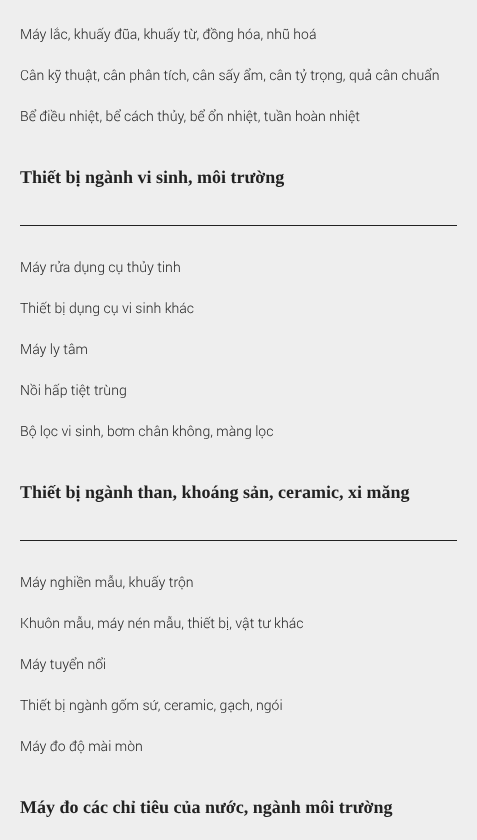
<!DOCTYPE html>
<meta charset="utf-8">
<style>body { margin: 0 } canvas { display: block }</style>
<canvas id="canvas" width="477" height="840"></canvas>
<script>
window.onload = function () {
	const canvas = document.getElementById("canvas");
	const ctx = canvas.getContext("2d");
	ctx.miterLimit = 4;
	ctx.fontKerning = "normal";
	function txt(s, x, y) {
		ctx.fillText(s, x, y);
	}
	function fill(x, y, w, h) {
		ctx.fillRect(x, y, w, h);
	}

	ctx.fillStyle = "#EEEEEE";
	fill(0, 0, 477, 840);
	ctx.fillStyle = "#222222";
	fill(20, 225, 437, 1);
	fill(20, 540, 437, 1);
	ctx.font = "300 14px Roboto";
	txt("Máy lắc, khuấy đũa, khuấy từ, đồng hóa, nhũ hoá", 20, 39);
	txt("Cân kỹ thuật, cân phân tích, cân sấy ẩm, cân tỷ trọng, quả cân chuẩn", 20, 80);
	txt("Bể điều nhiệt, bể cách thủy, bể ổn nhiệt, tuần hoàn nhiệt", 20, 121);
	ctx.font = "bold 18px Liberation Serif";
	txt("Thiết bị ngành vi sinh, môi trường", 20, 183);
	ctx.font = "300 14px Roboto";
	txt("Máy rửa dụng cụ thủy tinh", 20, 272);
	txt("Thiết bị dụng cụ vi sinh khác", 20, 313);
	txt("Máy ly tâm", 20, 354);
	txt("Nồi hấp tiệt trùng", 20, 395);
	txt("Bộ lọc vi sinh, bơm chân không, màng lọc", 20, 436);
	ctx.font = "bold 18px Liberation Serif";
	txt("Thiết bị ngành than, khoáng sản, ceramic, xi măng", 20, 498);
	ctx.font = "300 14px Roboto";
	txt("Máy nghiền mẫu, khuấy trộn", 20, 587);
	txt("Khuôn mẫu, máy nén mẫu, thiết bị, vật tư khác", 20, 628);
	txt("Máy tuyển nổi", 20, 669);
	txt("Thiết bị ngành gốm sứ, ceramic, gạch, ngói", 20, 710);
	txt("Máy đo độ mài mòn", 20, 751);
	ctx.font = "bold 18px Liberation Serif";
	txt("Máy đo các chỉ tiêu của nước, ngành môi trường", 20, 813);
};
</script>
